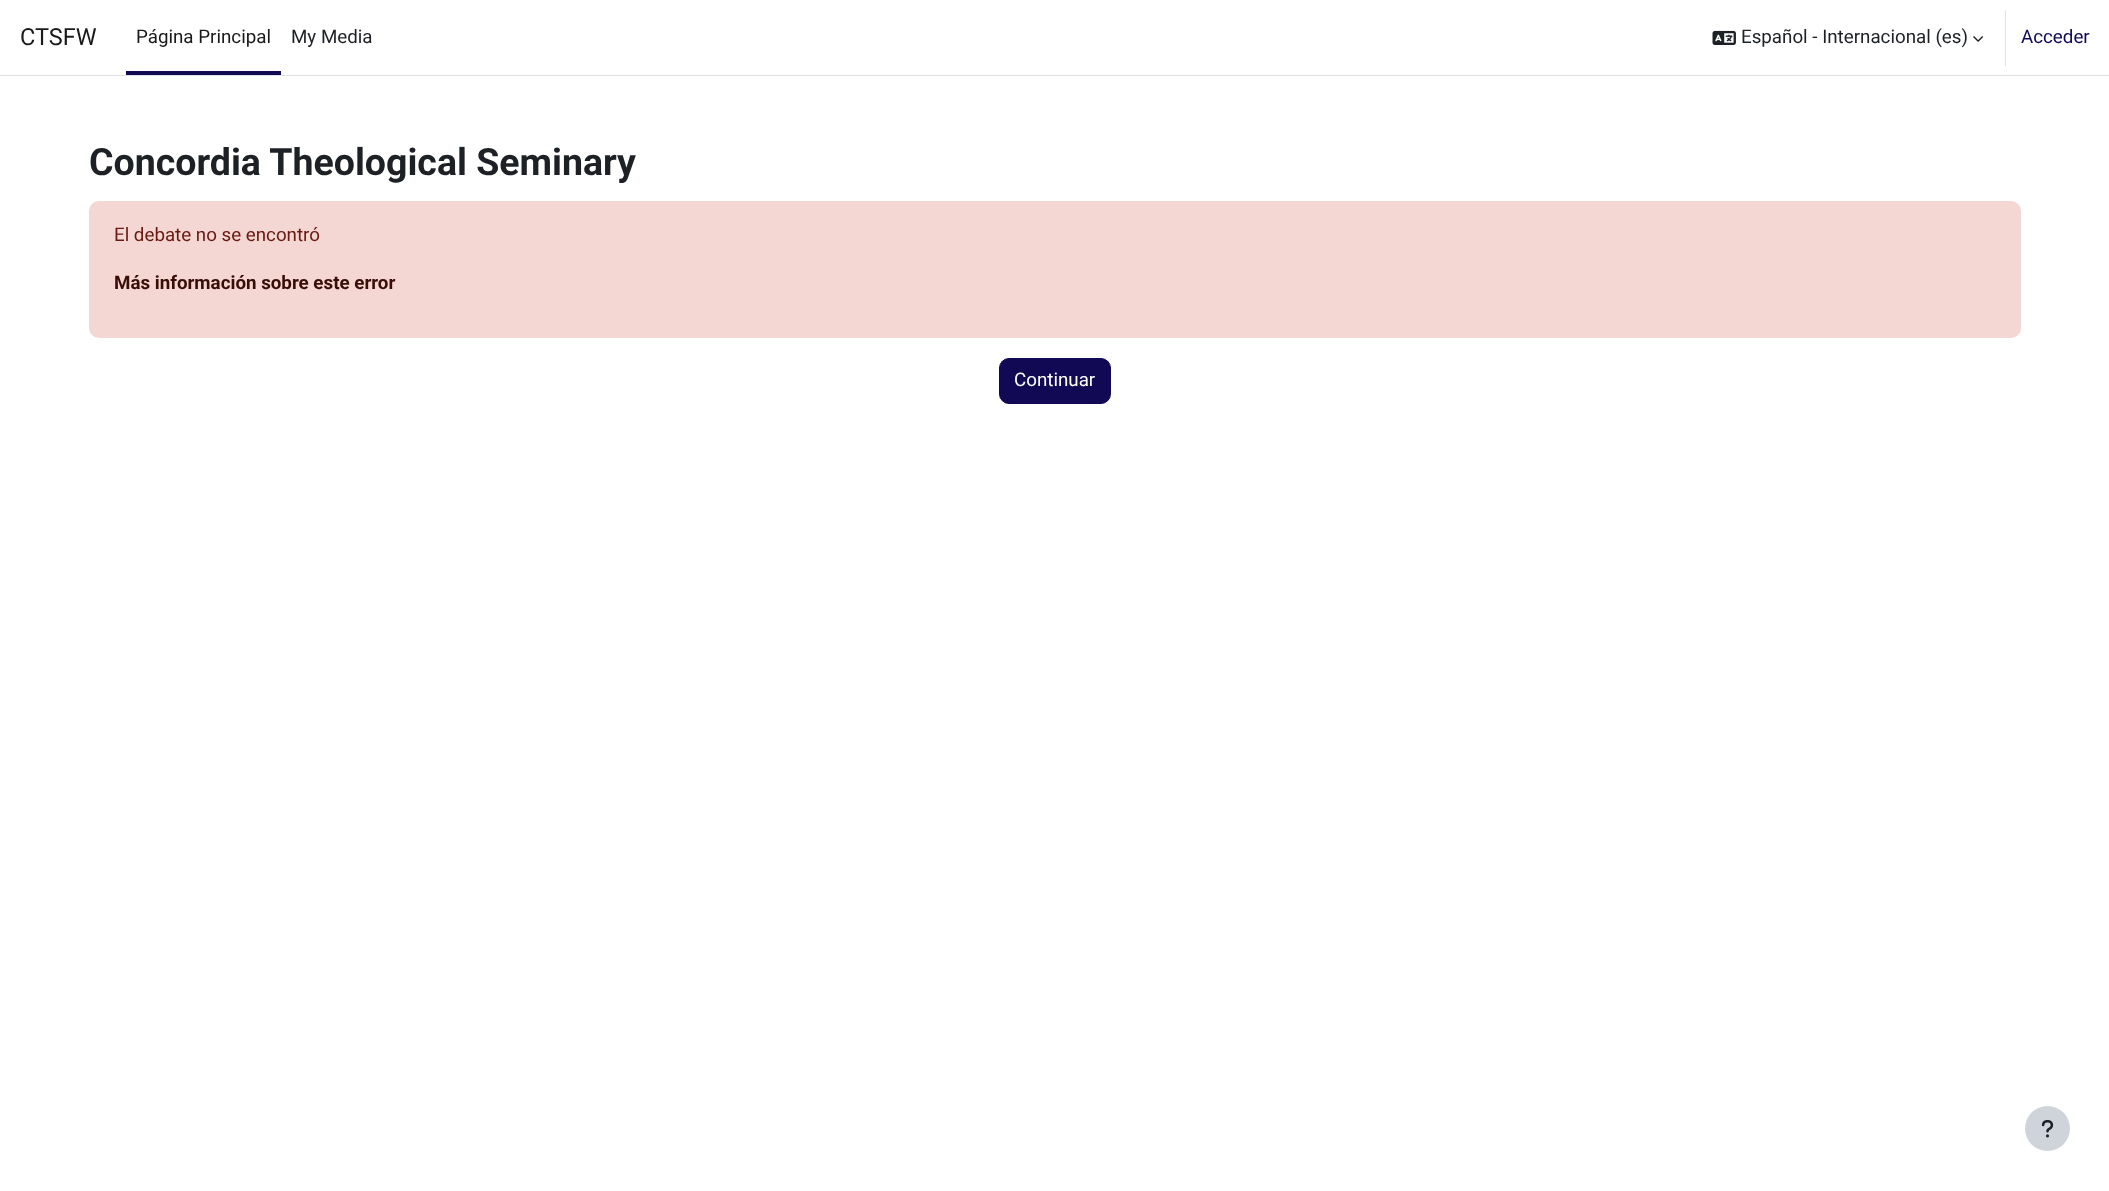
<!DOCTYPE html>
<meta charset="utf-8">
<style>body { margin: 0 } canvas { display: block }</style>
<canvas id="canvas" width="2109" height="1191"></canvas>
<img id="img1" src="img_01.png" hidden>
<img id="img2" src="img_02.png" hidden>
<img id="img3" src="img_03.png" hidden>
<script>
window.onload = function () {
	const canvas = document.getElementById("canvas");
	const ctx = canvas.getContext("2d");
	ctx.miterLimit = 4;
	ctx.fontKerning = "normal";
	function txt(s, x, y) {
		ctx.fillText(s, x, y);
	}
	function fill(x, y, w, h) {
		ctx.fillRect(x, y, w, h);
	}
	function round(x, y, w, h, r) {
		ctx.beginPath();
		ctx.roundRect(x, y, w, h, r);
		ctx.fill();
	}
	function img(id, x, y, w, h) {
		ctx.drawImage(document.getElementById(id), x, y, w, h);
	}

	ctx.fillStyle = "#FFFFFF";
	fill(0, 0, 2109, 1191);
	ctx.fillStyle = "#DEE2E6";
	fill(0, 75, 2109, 1);
	ctx.fillStyle = "#110954";
	fill(126, 71, 155, 4);
	img("img1", 1712, 30, 24, 15);
	img("img2", 1973, 36, 10, 6);
	ctx.fillStyle = "#DEE2E6";
	fill(2005, 10, 1, 56);
	ctx.fillStyle = "#F4D6D2";
	round(89, 201, 1932, 137, 10);
	ctx.fillStyle = "#110954";
	ctx.beginPath();
	ctx.roundRect(999.5, 358.5, 111, 45, 9.5);
	ctx.fill();
	ctx.strokeStyle = "#110954";
	ctx.stroke();
	ctx.fillStyle = "#CED4DA";
	ctx.beginPath();
	ctx.arc(2047.5, 1128.5, 22.5, 0, Math.PI * 2);
	ctx.fill();
	img("img3", 2041, 1120, 13, 18);
	ctx.font = "23.5px Roboto";
	ctx.fillStyle = "#1A1A1A";
	txt("CTSFW", 20, 45);
	ctx.font = "18.75px Roboto";
	txt("Página Principal", 136, 43);
	ctx.fillStyle = "#1D2125";
	txt("My Media", 291, 43);
	txt("Español - Internacional (es)", 1741, 43);
	ctx.fillStyle = "#110954";
	txt("Acceder", 2021, 43);
	ctx.font = "bold 37.5px Roboto";
	ctx.fillStyle = "#1D2125";
	txt("Concordia Theological Seminary", 89, 175);
	ctx.font = "18.75px Roboto";
	ctx.fillStyle = "#691911";
	txt("El debate no se encontró", 114, 241);
	ctx.font = "bold 18.75px Roboto";
	ctx.fillStyle = "#390E09";
	txt("Más información sobre este error", 114, 289);
	ctx.font = "18.75px Roboto";
	ctx.fillStyle = "#FFFFFF";
	txt("Continuar", 1014, 386);
};
</script>
